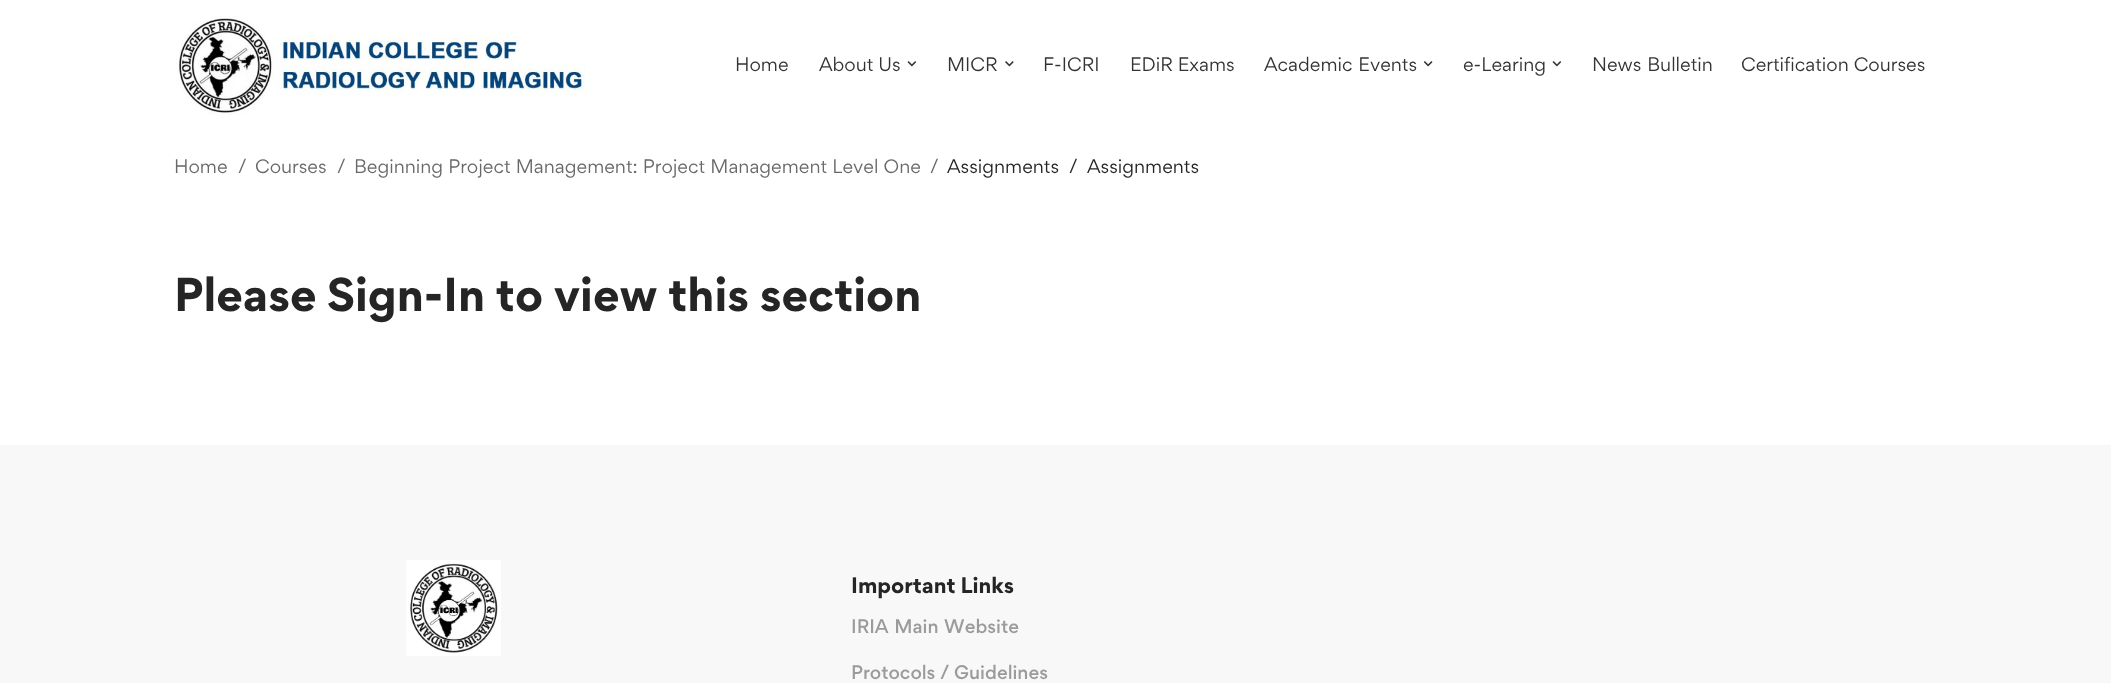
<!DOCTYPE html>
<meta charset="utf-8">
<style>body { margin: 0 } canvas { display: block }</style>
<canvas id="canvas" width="2111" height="683"></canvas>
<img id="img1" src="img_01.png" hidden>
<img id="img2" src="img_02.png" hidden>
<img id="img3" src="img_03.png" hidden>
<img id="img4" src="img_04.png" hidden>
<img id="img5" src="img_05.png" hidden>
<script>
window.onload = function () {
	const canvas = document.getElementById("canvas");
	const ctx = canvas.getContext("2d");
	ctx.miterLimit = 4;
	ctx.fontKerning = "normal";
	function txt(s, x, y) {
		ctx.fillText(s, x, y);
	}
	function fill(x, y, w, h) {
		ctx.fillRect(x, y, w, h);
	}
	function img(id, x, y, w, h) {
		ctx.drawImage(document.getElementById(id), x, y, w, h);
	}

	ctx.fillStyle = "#FFFFFF";
	fill(0, 0, 2111, 683);
	img("img1", 176, 16, 409, 99);
	img("img2", 907, 61, 10, 6);
	img("img3", 1005, 61, 9, 6);
	img("img4", 1423, 61, 10, 6);
	img("img2", 1552, 61, 10, 6);
	ctx.fillStyle = "#F8F8F8";
	fill(0, 445, 2111, 238);
	img("img5", 406, 560, 95, 96);
	ctx.font = "17.5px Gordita";
	ctx.fillStyle = "#333333";
	txt("Home", 735, 71);
	txt("About Us", 819, 71);
	txt("MICR", 947, 71);
	txt("F-ICRI", 1043, 71);
	txt("EDiR Exams", 1130, 71);
	ctx.wordSpacing = "1px";
	txt("Academic Events", 1264, 71);
	ctx.wordSpacing = "0px";
	txt("e-Learing", 1463, 71);
	ctx.wordSpacing = "1px";
	txt("News Bulletin", 1592, 71);
	ctx.wordSpacing = "0px";
	txt("Certification Courses", 1741, 71);
	ctx.fillStyle = "#696969";
	txt("Home", 174, 173);
	txt("/", 238, 173);
	txt("Courses", 255, 173);
	txt("/", 337, 173);
	ctx.wordSpacing = "0.25px";
	txt("Beginning Project Management: Project Management Level One", 354, 173);
	ctx.wordSpacing = "0px";
	txt("/", 930, 173);
	ctx.fillStyle = "#252525";
	txt("Assignments", 947, 173);
	txt("/", 1069, 173);
	txt("Assignments", 1087, 173);
	ctx.font = "bold 42.5px Gordita";
	txt("Please Sign-In to view this section", 174, 311);
	ctx.font = "bold 20px Gordita";
	txt("Important Links", 851, 593);
	ctx.wordSpacing = "1px";
	ctx.font = "500 17.5px Gordita";
	ctx.fillStyle = "#9B9B9B";
	txt("IRIA Main Website", 851, 633);
	ctx.wordSpacing = "0px";
	txt("Protocols / Guidelines", 851, 679);
};
</script>
